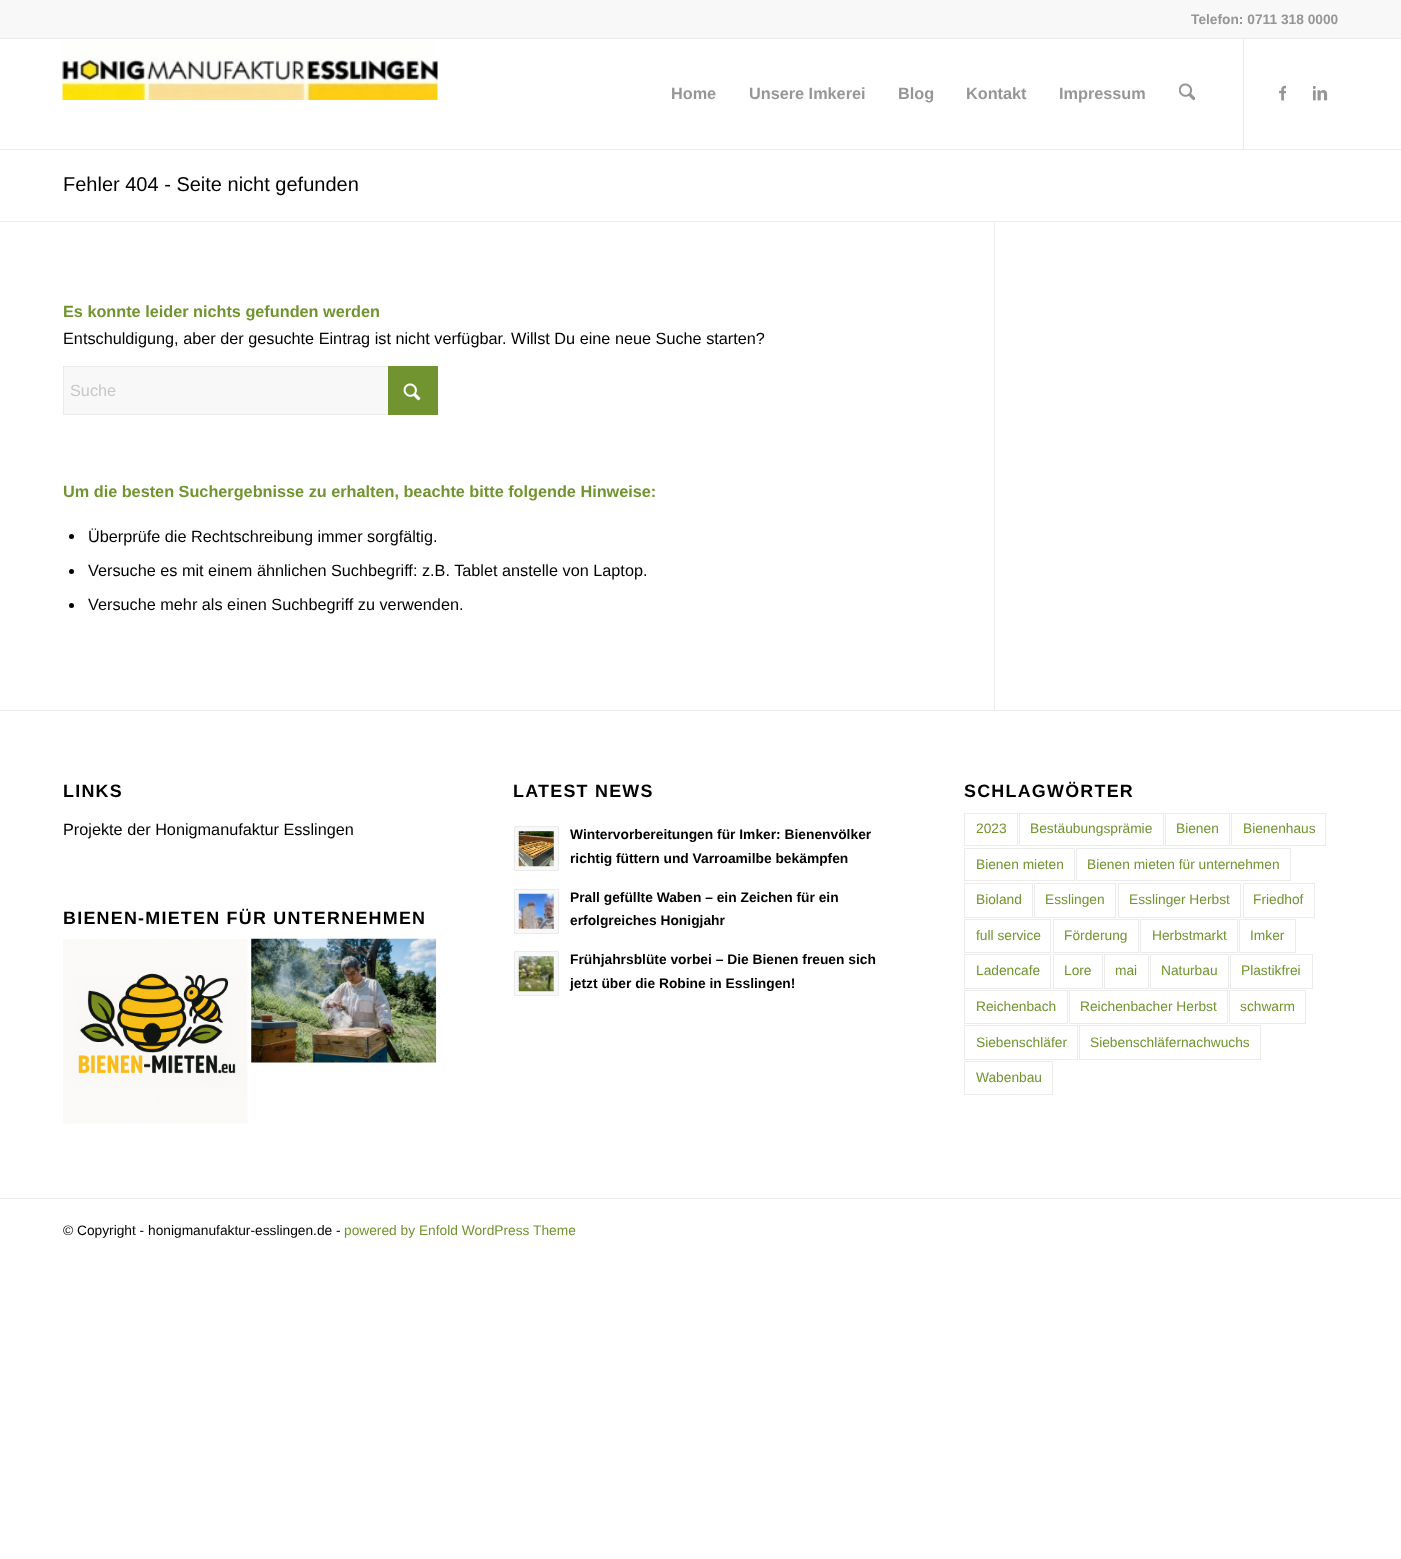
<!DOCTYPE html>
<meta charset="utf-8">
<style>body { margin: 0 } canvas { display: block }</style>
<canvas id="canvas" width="1401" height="1559"></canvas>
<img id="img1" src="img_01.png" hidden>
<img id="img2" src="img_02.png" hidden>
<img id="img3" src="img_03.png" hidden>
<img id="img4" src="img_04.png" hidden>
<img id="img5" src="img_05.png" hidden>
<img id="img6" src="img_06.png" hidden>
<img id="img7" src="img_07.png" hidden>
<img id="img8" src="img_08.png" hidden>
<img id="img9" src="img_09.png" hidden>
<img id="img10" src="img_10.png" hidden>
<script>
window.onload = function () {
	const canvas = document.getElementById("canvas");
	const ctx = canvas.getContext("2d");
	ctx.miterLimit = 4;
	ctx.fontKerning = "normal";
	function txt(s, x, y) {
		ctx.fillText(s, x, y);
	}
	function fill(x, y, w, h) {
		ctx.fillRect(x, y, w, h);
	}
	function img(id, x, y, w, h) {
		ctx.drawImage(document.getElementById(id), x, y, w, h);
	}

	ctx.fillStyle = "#FFFFFF";
	fill(0, 0, 1401, 1559);
	ctx.fillStyle = "#F8F8F8";
	fill(0, 0, 1401, 38);
	ctx.fillStyle = "#EBEBEB";
	fill(0, 38, 1401, 1);
	fill(0, 149, 1401, 1);
	img("img1", 62, 39, 376, 61);
	fill(1243, 39, 1, 110);
	img("img2", 1179, 83, 16, 18);
	img("img3", 1279, 85, 7, 16);
	img("img4", 1313, 86, 15, 15);
	fill(0, 221, 1401, 1);
	fill(994, 223, 1, 487);
	ctx.fillStyle = "#F8F8F8";
	fill(64, 367, 324, 47);
	ctx.strokeStyle = "#EBEBEB";
	ctx.strokeRect(63.5, 366.5, 374, 48);
	ctx.fillStyle = "#719430";
	fill(388, 366, 50, 49);
	img("img5", 403, 383, 18, 18);
	ctx.fillStyle = "#000000";
	ctx.beginPath();
	ctx.arc(71.5, 536.5, 2.5, 0, Math.PI * 2);
	ctx.fill();
	ctx.beginPath();
	ctx.arc(71.5, 571.5, 2.5, 0, Math.PI * 2);
	ctx.fill();
	ctx.beginPath();
	ctx.arc(71.5, 605.5, 2.5, 0, Math.PI * 2);
	ctx.fill();
	ctx.fillStyle = "#EBEBEB";
	fill(0, 710, 1401, 1);
	img("img6", 63, 939, 185, 185);
	img("img7", 251, 938, 186, 125);
	ctx.fillStyle = "#F8F8F8";
	ctx.beginPath();
	ctx.rect(514.5, 826.5, 44, 44);
	ctx.fill();
	ctx.stroke();
	img("img8", 518, 831, 36, 36);
	ctx.beginPath();
	ctx.rect(514.5, 889.5, 44, 44);
	ctx.fill();
	ctx.stroke();
	img("img9", 518, 893, 36, 36);
	ctx.beginPath();
	ctx.rect(514.5, 951.5, 44, 44);
	ctx.fill();
	ctx.stroke();
	img("img10", 518, 956, 36, 36);
	ctx.strokeRect(964.5, 813.5, 53, 32);
	ctx.strokeRect(1019.5, 813.5, 144, 32);
	ctx.strokeRect(1165.5, 813.5, 64, 32);
	ctx.strokeRect(1231.5, 813.5, 94, 32);
	ctx.strokeRect(964.5, 848.5, 110, 32);
	ctx.strokeRect(1076.5, 848.5, 214, 32);
	ctx.strokeRect(964.5, 883.5, 68, 34);
	ctx.strokeRect(1034.5, 883.5, 81, 34);
	ctx.strokeRect(1118.5, 883.5, 122, 34);
	ctx.strokeRect(1243.5, 883.5, 71, 34);
	ctx.strokeRect(964.5, 919.5, 86, 33);
	ctx.strokeRect(1053.5, 919.5, 85, 33);
	ctx.strokeRect(1140.5, 919.5, 97, 33);
	ctx.strokeRect(1239.5, 919.5, 56, 33);
	ctx.strokeRect(964.5, 954.5, 86, 34);
	ctx.strokeRect(1053.5, 954.5, 49, 34);
	ctx.strokeRect(1104.5, 954.5, 44, 34);
	ctx.strokeRect(1150.5, 954.5, 78, 34);
	ctx.strokeRect(1230.5, 954.5, 82, 34);
	ctx.strokeRect(964.5, 990.5, 103, 33);
	ctx.strokeRect(1069.5, 990.5, 158, 33);
	ctx.strokeRect(1229.5, 990.5, 76, 33);
	ctx.strokeRect(964.5, 1025.5, 113, 34);
	ctx.strokeRect(1079.5, 1025.5, 181, 34);
	ctx.strokeRect(964.5, 1061.5, 88, 33);
	ctx.fillStyle = "#EBEBEB";
	fill(0, 1198, 1401, 1);
	ctx.font = "bold 13.75px Liberation Sans";
	ctx.fillStyle = "#969696";
	txt("Telefon: 0711 318 0000", 1191, 24);
	ctx.font = "bold 16.25px Liberation Sans";
	txt("Home", 671, 99);
	txt("Unsere Imkerei", 749, 99);
	txt("Blog", 898, 99);
	txt("Kontakt", 966, 99);
	txt("Impressum", 1059, 99);
	ctx.font = "20px Liberation Sans";
	ctx.fillStyle = "#000000";
	txt("Fehler 404 - Seite nicht gefunden", 63, 191);
	ctx.font = "bold 16.25px Liberation Sans";
	ctx.fillStyle = "#719430";
	txt("Es konnte leider nichts gefunden werden", 63, 317);
	ctx.font = "16.25px Liberation Sans";
	ctx.fillStyle = "#000000";
	txt("Entschuldigung, aber der gesuchte Eintrag ist nicht verfügbar. Willst Du eine neue Suche starten?", 63, 344);
	ctx.fillStyle = "#C7C7C7";
	txt("Suche", 70, 396);
	ctx.font = "bold 16.25px Liberation Sans";
	ctx.fillStyle = "#719430";
	txt("Um die besten Suchergebnisse zu erhalten, beachte bitte folgende Hinweise:", 63, 497);
	ctx.font = "16.25px Liberation Sans";
	ctx.fillStyle = "#000000";
	txt("Überprüfe die Rechtschreibung immer sorgfältig.", 88, 542);
	txt("Versuche es mit einem ähnlichen Suchbegriff: z.B. Tablet anstelle von Laptop.", 88, 576);
	txt("Versuche mehr als einen Suchbegriff zu verwenden.", 88, 610);
	ctx.letterSpacing = "1.25px";
	ctx.font = "bold 17.9px Liberation Sans";
	txt("LINKS", 63, 797);
	ctx.letterSpacing = "0px";
	ctx.font = "16.25px Liberation Sans";
	txt("Projekte der Honigmanufaktur Esslingen", 63, 835);
	ctx.letterSpacing = "1.25px";
	ctx.font = "bold 17.9px Liberation Sans";
	txt("BIENEN-MIETEN FÜR UNTERNEHMEN", 63, 924);
	txt("LATEST NEWS", 513, 797);
	ctx.letterSpacing = "0px";
	ctx.font = "bold 13.8px Liberation Sans";
	txt("Wintervorbereitungen für Imker: Bienenvölker", 570, 839);
	txt("richtig füttern und Varroamilbe bekämpfen", 570, 863);
	txt("Prall gefüllte Waben – ein Zeichen für ein", 570, 902);
	txt("erfolgreiches Honigjahr", 570, 925);
	txt("Frühjahrsblüte vorbei – Die Bienen freuen sich", 570, 964);
	txt("jetzt über die Robine in Esslingen!", 570, 988);
	ctx.letterSpacing = "1.25px";
	ctx.font = "bold 17.9px Liberation Sans";
	txt("SCHLAGWÖRTER", 964, 797);
	ctx.letterSpacing = "0px";
	ctx.font = "13.75px Liberation Sans";
	ctx.fillStyle = "#719430";
	txt("2023", 976, 833);
	txt("Bestäubungsprämie", 1030, 833);
	txt("Bienen", 1176, 833);
	txt("Bienenhaus", 1243, 833);
	txt("Bienen mieten", 976, 869);
	txt("Bienen mieten für unternehmen", 1087, 869);
	txt("Bioland", 976, 904);
	txt("Esslingen", 1045, 904);
	txt("Esslinger Herbst", 1129, 904);
	txt("Friedhof", 1253, 904);
	txt("full service", 976, 940);
	txt("Förderung", 1064, 940);
	txt("Herbstmarkt", 1152, 940);
	txt("Imker", 1250, 940);
	txt("Ladencafe", 976, 975);
	txt("Lore", 1064, 975);
	txt("mai", 1115, 975);
	txt("Naturbau", 1161, 975);
	txt("Plastikfrei", 1241, 975);
	txt("Reichenbach", 976, 1011);
	txt("Reichenbacher Herbst", 1080, 1011);
	txt("schwarm", 1240, 1011);
	txt("Siebenschläfer", 976, 1047);
	txt("Siebenschläfernachwuchs", 1090, 1047);
	txt("Wabenbau", 976, 1082);
	ctx.fillStyle = "#000000";
	txt("© Copyright - honigmanufaktur-esslingen.de -", 63, 1235);
	ctx.fillStyle = "#719430";
	txt("powered by Enfold WordPress Theme", 344, 1235);
};
</script>
